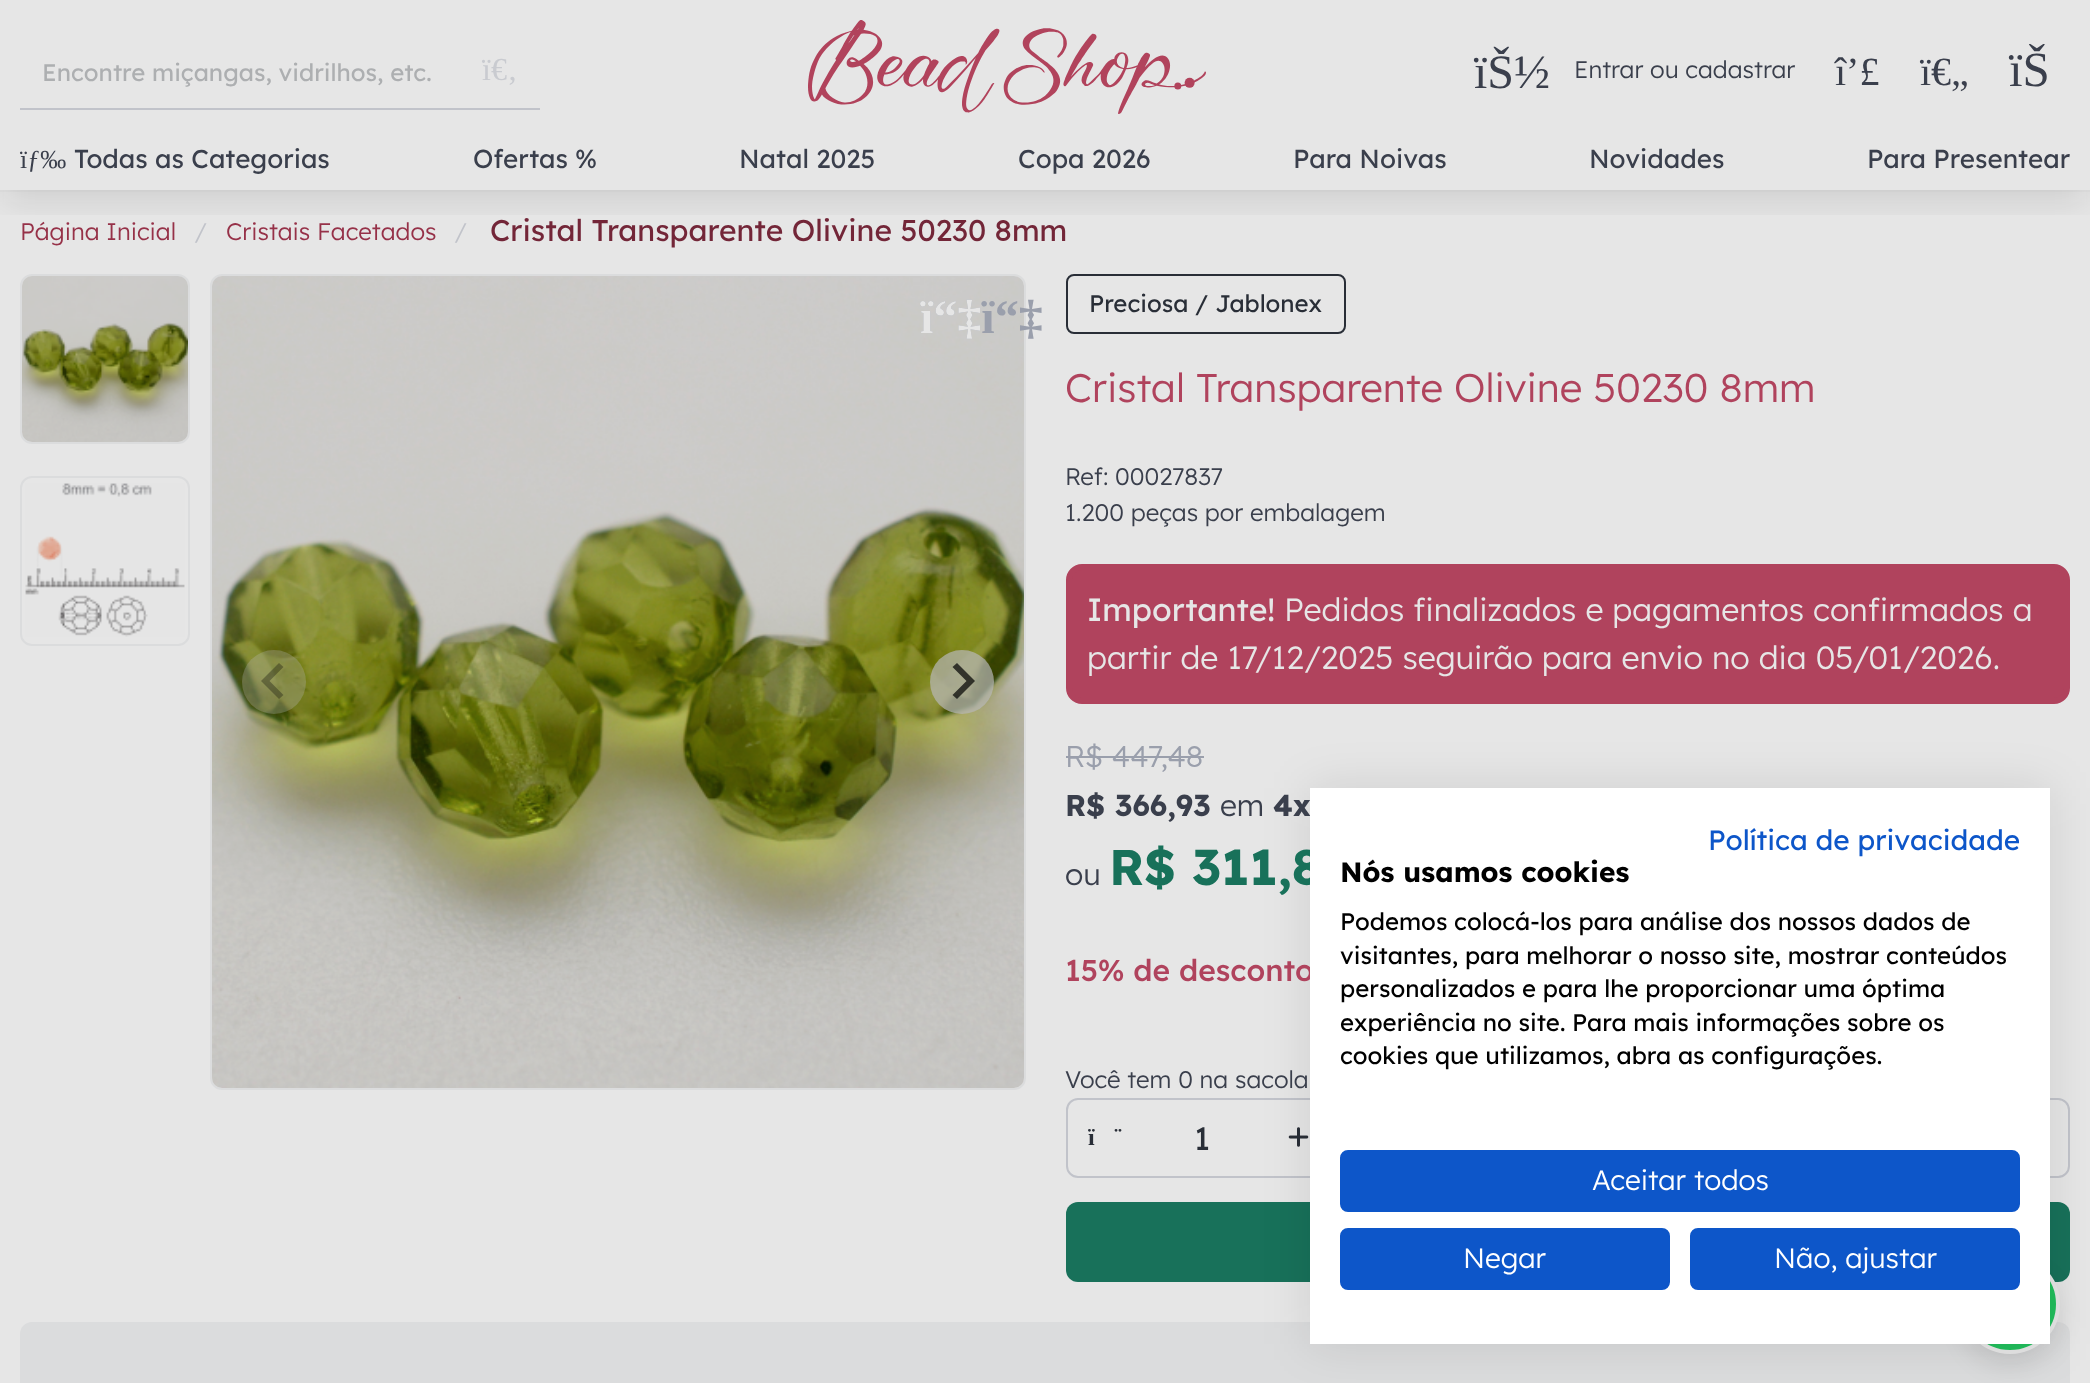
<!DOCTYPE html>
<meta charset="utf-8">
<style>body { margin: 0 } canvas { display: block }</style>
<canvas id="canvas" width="2090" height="1383"></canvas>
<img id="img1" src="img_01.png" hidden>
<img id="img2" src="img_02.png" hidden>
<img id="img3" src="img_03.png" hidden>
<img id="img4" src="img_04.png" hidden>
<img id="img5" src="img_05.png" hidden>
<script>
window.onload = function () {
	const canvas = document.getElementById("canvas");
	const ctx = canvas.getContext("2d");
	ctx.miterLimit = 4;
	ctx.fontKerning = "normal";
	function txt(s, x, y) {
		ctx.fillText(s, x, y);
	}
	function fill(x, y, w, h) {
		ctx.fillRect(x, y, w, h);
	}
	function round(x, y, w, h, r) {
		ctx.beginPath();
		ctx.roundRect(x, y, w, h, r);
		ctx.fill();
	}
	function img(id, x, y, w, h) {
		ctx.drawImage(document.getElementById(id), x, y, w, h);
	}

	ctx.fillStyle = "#E6E6E6";
	fill(0, 0, 2090, 1383);
	ctx.strokeStyle = "#E1E1E1";
	ctx.lineWidth = 2;
	ctx.strokeRect(-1, -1, 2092, 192);
	ctx.save();
	ctx.beginPath();
	ctx.rect(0, 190, 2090, 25);
	ctx.clip();
	ctx.fillStyle = "rgba(8, 9, 11, 0.1)";
	ctx.filter = "blur(16px)";
	ctx.beginPath();
	ctx.rect(4, 20, 2082, 182);
	ctx.fill();
	ctx.filter = "none";
	ctx.restore();
	ctx.fillStyle = "#C1C3CA";
	fill(20, 108, 520, 2);
	img("img1", 808, 20, 398, 94);
	ctx.fillStyle = "#18715A";
	round(1066, 1202, 1004, 80, 12);
	ctx.fillStyle = "#DBDCDD";
	round(20, 1322, 2050, 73, 12);
	ctx.fillStyle = "rgba(8, 9, 11, 0.1)";
	ctx.filter = "blur(13px)";
	ctx.beginPath();
	ctx.roundRect(1964, 1270, 92, 94, 46);
	ctx.fill();
	ctx.filter = "none";
	ctx.fillStyle = "#21BE5C";
	ctx.beginPath();
	ctx.arc(2010, 1304, 48, 0, Math.PI * 2);
	ctx.fill();
	ctx.strokeStyle = "#E6E6E6";
	ctx.lineWidth = 4;
	ctx.stroke();
	ctx.beginPath();
	ctx.roundRect(21, 275, 168, 168, 11);
	ctx.strokeStyle = "#DBDCDD";
	ctx.lineWidth = 2;
	ctx.stroke();
	img("img2", 22, 276, 166, 166);
	ctx.beginPath();
	ctx.roundRect(21, 477, 168, 168, 11);
	ctx.stroke();
	img("img3", 25, 483, 160, 154);
	ctx.beginPath();
	ctx.roundRect(211, 275, 814, 814, 11);
	ctx.stroke();
	img("img4", 212, 276, 812, 812);
	ctx.fillStyle = "rgba(184, 184, 184, 0.3)";
	ctx.beginPath();
	ctx.arc(274, 682, 32, 0, Math.PI * 2);
	ctx.fill();
	ctx.fillStyle = "rgba(0, 0, 0, 0.3)";
	ctx.beginPath();
	ctx.moveTo(279, 663);
	ctx.lineTo(283.5, 667);
	ctx.lineTo(269.5, 681);
	ctx.lineTo(283.5, 695);
	ctx.lineTo(279, 699);
	ctx.lineTo(261, 681);
	ctx.closePath();
	ctx.fill();
	ctx.fillStyle = "rgba(184, 184, 184, 0.7)";
	ctx.beginPath();
	ctx.arc(962, 682, 32, 0, Math.PI * 2);
	ctx.fill();
	ctx.fillStyle = "rgba(0, 0, 0, 0.7)";
	ctx.beginPath();
	ctx.moveTo(957, 663);
	ctx.lineTo(952.5, 667);
	ctx.lineTo(966.5, 681);
	ctx.lineTo(952.5, 695);
	ctx.lineTo(957, 699);
	ctx.lineTo(975, 681);
	ctx.closePath();
	ctx.fill();
	ctx.beginPath();
	ctx.roundRect(1067, 275, 278, 58, 7);
	ctx.strokeStyle = "#292E37";
	ctx.stroke();
	ctx.fillStyle = "#B0435D";
	ctx.beginPath();
	ctx.roundRect(1069, 567, 998, 134, 13);
	ctx.fill();
	ctx.strokeStyle = "#B0435D";
	ctx.lineWidth = 6;
	ctx.stroke();
	ctx.fillStyle = "#9A9FAC";
	fill(1066, 756, 138, 2);
	ctx.beginPath();
	ctx.roundRect(1067, 1099, 272, 78, 11);
	ctx.strokeStyle = "#C1C3CA";
	ctx.lineWidth = 2;
	ctx.stroke();
	img("img5", 1288, 1127, 21, 20);
	ctx.beginPath();
	ctx.roundRect(1365, 1099, 704, 78, 11);
	ctx.stroke();
	ctx.fillStyle = "rgba(0, 0, 0, 0.1)";
	ctx.filter = "blur(24px)";
	ctx.beginPath();
	ctx.rect(1310, 788, 740, 556);
	ctx.fill();
	ctx.filter = "none";
	ctx.font = "24px Lexend Deca";
	ctx.fillStyle = "#ADAFB1";
	txt("Encontre miçangas, vidrilhos, etc.", 42, 81);
	ctx.font = "32px Liberation Serif";
	ctx.fillStyle = "#C9CBD0";
	txt("ï€‚", 482, 80);
	ctx.font = "48px Liberation Serif";
	ctx.fillStyle = "#3A3F4C";
	txt("ïŠ½", 1474, 88);
	ctx.font = "300 24px Lexend Deca";
	txt("Entrar ou cadastrar", 1574, 78);
	ctx.font = "40px Liberation Serif";
	txt("î’£", 1835, 85);
	txt("ï€„", 1920, 85);
	ctx.font = "49px Liberation Serif";
	txt("ïŠ", 2009, 86);
	ctx.font = "26px Liberation Serif";
	txt("ïƒ‰", 20, 168);
	ctx.font = "26px Lexend Deca";
	txt("Todas as Categorias", 74, 168);
	txt("Ofertas %", 473, 168);
	txt("Natal 2025", 739, 168);
	txt("Copa 2026", 1018, 168);
	txt("Para Noivas", 1293, 168);
	txt("Novidades", 1589, 168);
	txt("Para Presentear", 1867, 168);
	ctx.font = "300 24px Lexend Deca";
	ctx.fillStyle = "#963148";
	txt("Página Inicial", 20, 240);
	ctx.fillStyle = "#C1C3CA";
	txt("/", 194, 240);
	ctx.fillStyle = "#963148";
	txt("Cristais Facetados", 226, 240);
	ctx.fillStyle = "#C1C3CA";
	txt("/", 454, 240);
	ctx.font = "30px Lexend Deca";
	ctx.fillStyle = "#732638";
	txt("Cristal Transparente Olivine 50230 8mm", 490, 241);
	ctx.font = "bold 48px Liberation Serif";
	ctx.fillStyle = "#9A9FAC";
	txt("ï“‡ï“‡", 920, 333);
	ctx.fillStyle = "#E6E6E6";
	txt("ï“‡", 920, 333);
	ctx.font = "24px Lexend Deca";
	ctx.fillStyle = "#292E37";
	txt("Preciosa / Jablonex", 1089, 312);
	ctx.font = "300 40px Lexend Deca";
	ctx.fillStyle = "#B0435D";
	txt("Cristal Transparente Olivine 50230 8mm", 1065, 402);
	ctx.font = "300 24px Lexend Deca";
	ctx.fillStyle = "#3A3F4C";
	txt("Ref: 00027837", 1065, 485);
	txt("1.200 peças por embalagem", 1065, 521);
	ctx.font = "32px Lexend Deca";
	ctx.fillStyle = "#E6E6E6";
	txt("Importante!", 1087, 621);
	ctx.font = "300 32px Lexend Deca";
	txt("Pedidos finalizados e pagamentos confirmados a", 1284, 621);
	txt("partir de 17/12/2025 seguirão para envio no dia 05/01/2026.", 1087, 669);
	ctx.font = "300 30px Lexend Deca";
	ctx.fillStyle = "#9A9FAC";
	txt("R$ 447,48", 1065, 767);
	ctx.font = "bold 30px Lexend Deca";
	ctx.fillStyle = "#3A3F4C";
	txt("R$ 366,93", 1065, 816);
	ctx.font = "300 30px Lexend Deca";
	txt("em", 1220, 816);
	ctx.font = "bold 30px Lexend Deca";
	txt("4x", 1273, 816);
	ctx.font = "300 30px Lexend Deca";
	txt("ou", 1065, 885);
	ctx.font = "bold 50px Lexend Deca";
	ctx.fillStyle = "#18715A";
	txt("R$ 311,8", 1109, 885);
	ctx.font = "500 30px Lexend Deca";
	ctx.fillStyle = "#B0435D";
	txt("15% de desconto", 1065, 981);
	ctx.font = "300 24px Lexend Deca";
	ctx.fillStyle = "#3A3F4C";
	txt("Você tem 0 na sacola", 1065, 1088);
	ctx.font = "bold 24px Liberation Serif";
	ctx.fillStyle = "#292E37";
	txt("ï", 1088, 1145);
	txt("¨", 1114, 1145);
	ctx.font = "32px Lexend Deca";
	txt("1", 1194, 1150);
	ctx.fillStyle = "#FFFFFF";
	fill(1310, 788, 740, 556);
	ctx.font = "28px Lexend Deca";
	ctx.fillStyle = "#0D56C9";
	txt("Política de privacidade", 1708, 850);
	ctx.font = "bold 28px Lexend Deca";
	ctx.fillStyle = "#000000";
	txt("Nós usamos cookies", 1340, 882);
	ctx.font = "24px Lexend Deca";
	txt("Podemos colocá-los para análise dos nossos dados de", 1340, 930);
	txt("visitantes, para melhorar o nosso site, mostrar conteúdos", 1340, 964);
	txt("personalizados e para lhe proporcionar uma óptima", 1340, 997);
	txt("experiência no site. Para mais informações sobre os", 1340, 1031);
	txt("cookies que utilizamos, abra as configurações.", 1340, 1064);
	ctx.fillStyle = "#0D56C9";
	ctx.beginPath();
	ctx.roundRect(1341, 1151, 678, 60, 7);
	ctx.fill();
	ctx.strokeStyle = "#0D56C9";
	ctx.stroke();
	ctx.font = "300 28px Lexend Deca";
	ctx.fillStyle = "#FFFFFF";
	txt("Aceitar todos", 1592, 1190);
	ctx.fillStyle = "#0D56C9";
	ctx.beginPath();
	ctx.roundRect(1341, 1229, 328, 60, 7);
	ctx.fill();
	ctx.stroke();
	ctx.fillStyle = "#FFFFFF";
	txt("Negar", 1463, 1268);
	ctx.fillStyle = "#0D56C9";
	ctx.beginPath();
	ctx.roundRect(1691, 1229, 328, 60, 7);
	ctx.fill();
	ctx.stroke();
	ctx.fillStyle = "#FFFFFF";
	txt("Não, ajustar", 1774, 1268);
};
</script>
